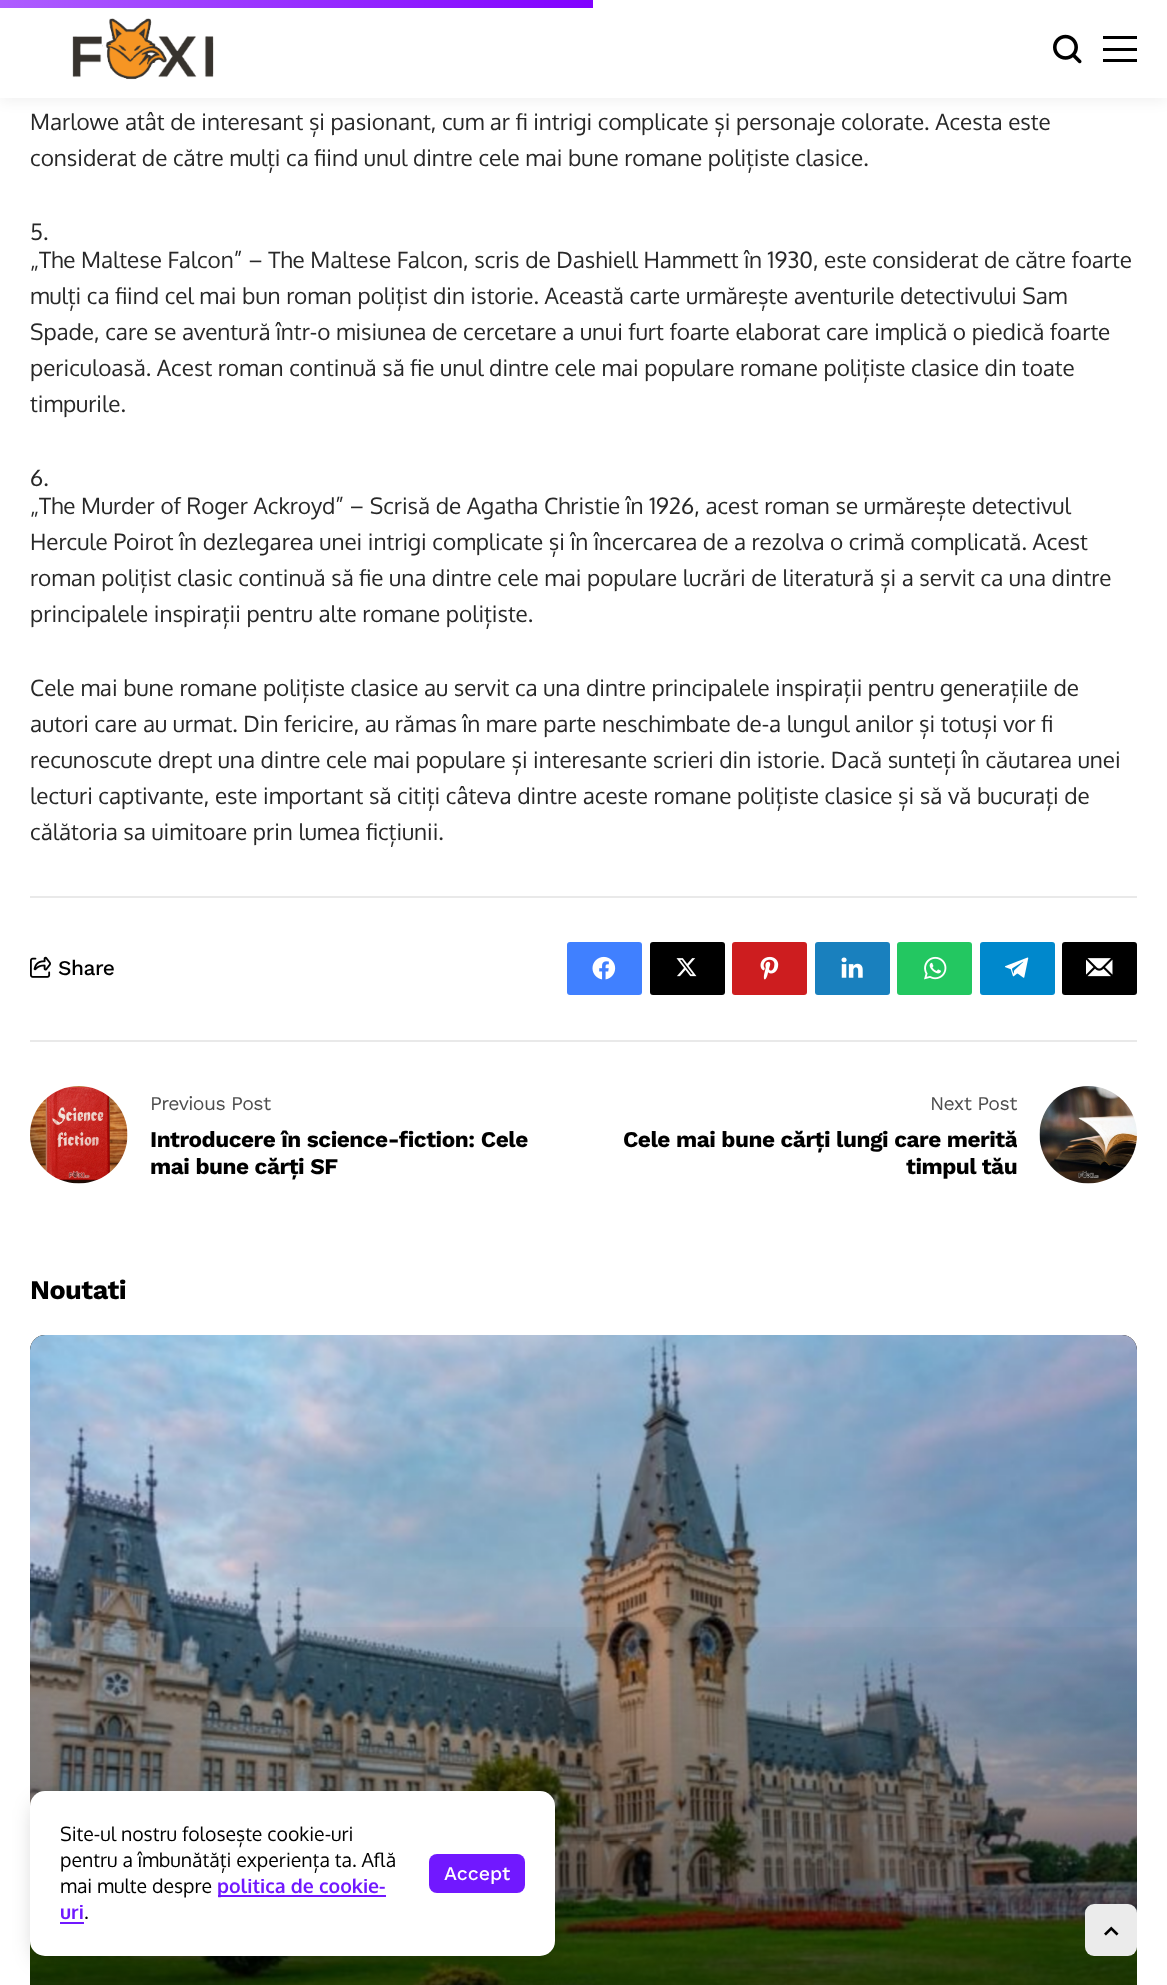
<!DOCTYPE html>
<meta charset="utf-8">
<style>body { margin: 0 } canvas { display: block }</style>
<canvas id="canvas" width="1167" height="1985"></canvas>
<img id="img1" src="img_01.png" hidden>
<img id="img2" src="img_02.png" hidden>
<img id="img3" src="img_03.png" hidden>
<img id="img4" src="img_04.png" hidden>
<img id="img5" src="img_05.png" hidden>
<img id="img6" src="img_06.png" hidden>
<img id="img7" src="img_07.png" hidden>
<img id="img8" src="img_08.png" hidden>
<img id="img9" src="img_09.png" hidden>
<img id="img10" src="img_10.png" hidden>
<img id="img11" src="img_11.png" hidden>
<img id="img12" src="img_12.png" hidden>
<img id="img13" src="img_13.png" hidden>
<img id="img14" src="img_14.png" hidden>
<script>
window.onload = function () {
	const canvas = document.getElementById("canvas");
	const ctx = canvas.getContext("2d");
	ctx.miterLimit = 4;
	ctx.fontKerning = "normal";
	function txt(s, x, y) {
		ctx.fillText(s, x, y);
	}
	function fill(x, y, w, h) {
		ctx.fillRect(x, y, w, h);
	}
	function round(x, y, w, h, r) {
		ctx.beginPath();
		ctx.roundRect(x, y, w, h, r);
		ctx.fill();
	}
	function img(id, x, y, w, h) {
		ctx.drawImage(document.getElementById(id), x, y, w, h);
	}
	let gradient;

	ctx.fillStyle = "#FFFFFF";
	fill(0, 0, 1167, 1985);
	ctx.fillStyle = "rgba(0, 0, 0, 0.06)";
	ctx.filter = "blur(7px)";
	ctx.beginPath();
	ctx.rect(0, 3, 1167, 98);
	ctx.fill();
	ctx.filter = "none";
	ctx.fillStyle = "#FFFFFF";
	fill(0, 0, 1167, 98);
	img("img1", 72, 18, 142, 62);
	img("img2", 1053, 34, 29, 30);
	ctx.fillStyle = "#000000";
	fill(1103, 36, 34, 3);
	fill(1103, 48, 34, 3);
	fill(1103, 59, 34, 3);
	gradient = ctx.createLinearGradient(0, 3.8, 593, 3.7);
	gradient.addColorStop(0, "#AE5EFF");
	gradient.addColorStop(1, "#8100FF");
	ctx.fillStyle = gradient;
	fill(0, 0, 593, 8);
	ctx.fillStyle = "#E9E9E9";
	fill(30, 896, 1107, 2);
	fill(30, 1040, 1107, 2);
	img("img3", 30, 956, 21, 22);
	ctx.fillStyle = "#4080FF";
	round(567, 942, 75, 53, 3);
	img("img4", 592, 956, 24, 24);
	ctx.fillStyle = "#000000";
	round(650, 942, 75, 53, 3);
	img("img5", 676, 958, 21, 19);
	ctx.fillStyle = "#CD1D1F";
	round(732, 942, 75, 53, 3);
	img("img6", 760, 956, 19, 24);
	ctx.fillStyle = "#1980BE";
	round(815, 942, 75, 53, 3);
	img("img7", 841, 957, 22, 21);
	ctx.fillStyle = "#23C761";
	round(897, 942, 75, 53, 3);
	img("img8", 924, 956, 23, 24);
	ctx.fillStyle = "#0088CC";
	round(980, 942, 75, 53, 3);
	img("img9", 1005, 957, 24, 21);
	ctx.fillStyle = "#000000";
	round(1062, 942, 75, 53, 3);
	img("img10", 1086, 958, 27, 19);
	img("img11", 30, 1086, 98, 98);
	img("img12", 1039, 1086, 98, 98);
	ctx.fillStyle = "#222222";
	round(30, 1335, 1107, 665, 15);
	img("img13", 30, 1335, 1107, 650);
	gradient = ctx.createLinearGradient(584, 1335, 584, 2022);
	gradient.addColorStop(0.4, "rgba(0, 0, 0, 0)");
	gradient.addColorStop(1, "rgba(0, 0, 0, 0.51)");
	ctx.fillStyle = gradient;
	fill(30, 1627, 1107, 358);
	ctx.fillStyle = "#EBEBEB";
	round(1085, 1904, 52, 52, 9);
	img("img14", 1104, 1926, 15, 10);
	ctx.fillStyle = "rgba(0, 0, 0, 0.2)";
	ctx.filter = "blur(11px)";
	ctx.beginPath();
	ctx.roundRect(35, 1803, 516, 156, 11);
	ctx.fill();
	ctx.filter = "none";
	ctx.fillStyle = "#FFFFFF";
	round(30, 1791, 525, 165, 15);
	ctx.fillStyle = "#7118FF";
	fill(218, 1895, 168, 2);
	fill(60, 1922, 24, 2);
	round(429, 1854, 96, 39, 8);
	ctx.font = "22.5px Oxygen";
	ctx.fillStyle = "#282828";
	txt("Marlowe atât de interesant și pasionant, cum ar fi intrigi complicate și personaje colorate. Acesta este", 30, 130);
	txt("considerat de către mulți ca fiind unul dintre cele mai bune romane polițiste clasice.", 30, 166);
	txt("5.", 30, 240);
	txt("„The Maltese Falcon” – The Maltese Falcon, scris de Dashiell Hammett în 1930, este considerat de către foarte", 30, 268);
	txt("mulți ca fiind cel mai bun roman polițist din istorie. Această carte urmărește aventurile detectivului Sam", 30, 304);
	txt("Spade, care se aventură într-o misiunea de cercetare a unui furt foarte elaborat care implică o piedică foarte", 30, 340);
	txt("periculoasă. Acest roman continuă să fie unul dintre cele mai populare romane polițiste clasice din toate", 30, 376);
	txt("timpurile.", 30, 412);
	txt("6.", 30, 486);
	txt("„The Murder of Roger Ackroyd” – Scrisă de Agatha Christie în 1926, acest roman se urmărește detectivul", 30, 514);
	txt("Hercule Poirot în dezlegarea unei intrigi complicate și în încercarea de a rezolva o crimă complicată. Acest", 30, 550);
	txt("roman polițist clasic continuă să fie una dintre cele mai populare lucrări de literatură și a servit ca una dintre", 30, 586);
	txt("principalele inspirații pentru alte romane polițiste.", 30, 622);
	txt("Cele mai bune romane polițiste clasice au servit ca una dintre principalele inspirații pentru generațiile de", 30, 696);
	txt("autori care au urmat. Din fericire, au rămas în mare parte neschimbate de-a lungul anilor și totuși vor fi", 30, 732);
	txt("recunoscute drept una dintre cele mai populare și interesante scrieri din istorie. Dacă sunteți în căutarea unei", 30, 768);
	txt("lecturi captivante, este important să citiți câteva dintre aceste romane polițiste clasice și să vă bucurați de", 30, 804);
	txt("călătoria sa uimitoare prin lumea ficțiunii.", 30, 840);
	ctx.letterSpacing = "-0.5px";
	ctx.font = "500 21px Work Sans";
	ctx.fillStyle = "#000000";
	txt("Share", 58, 975);
	ctx.letterSpacing = "-0.6px";
	ctx.font = "19.5px Work Sans";
	ctx.fillStyle = "#4D4D4D";
	txt("Previous Post", 150, 1110);
	ctx.letterSpacing = "-0.45px";
	ctx.font = "bold 22.5px Work Sans";
	ctx.fillStyle = "#000000";
	txt("Introducere în science-fiction: Cele", 150, 1147);
	txt("mai bune cărți SF", 150, 1174);
	ctx.letterSpacing = "-0.6px";
	ctx.font = "19.5px Work Sans";
	ctx.fillStyle = "#4D4D4D";
	txt("Next Post", 930, 1110);
	ctx.save();
	ctx.beginPath();
	ctx.rect(621, 1127, 396, 54);
	ctx.clip();
	ctx.letterSpacing = "-0.45px";
	ctx.font = "bold 22.5px Work Sans";
	ctx.fillStyle = "#000000";
	txt("Cele mai bune cărți lungi care merită", 623, 1147);
	ctx.restore();
	ctx.letterSpacing = "-0.45px";
	ctx.font = "bold 22.5px Work Sans";
	ctx.fillStyle = "#000000";
	txt("timpul tău", 906, 1174);
	ctx.letterSpacing = "-0.5px";
	ctx.font = "bold 27px Work Sans";
	txt("Noutati", 30, 1299);
	ctx.letterSpacing = "0px";
	ctx.font = "19.5px Oxygen";
	txt("Site-ul nostru folosește cookie-uri", 60, 1841);
	txt("pentru a îmbunătăți experiența ta. Află", 60, 1867);
	txt("mai multe despre", 60, 1893);
	ctx.font = "bold 19.5px Oxygen";
	ctx.fillStyle = "#7118FF";
	txt("politica de cookie-", 217, 1893);
	txt("uri", 60, 1919);
	ctx.font = "19.5px Oxygen";
	ctx.fillStyle = "#000000";
	txt(".", 84, 1919);
	ctx.font = "500 19.5px Work Sans";
	ctx.fillStyle = "#FFFFFF";
	txt("Accept", 444, 1880);
};
</script>
